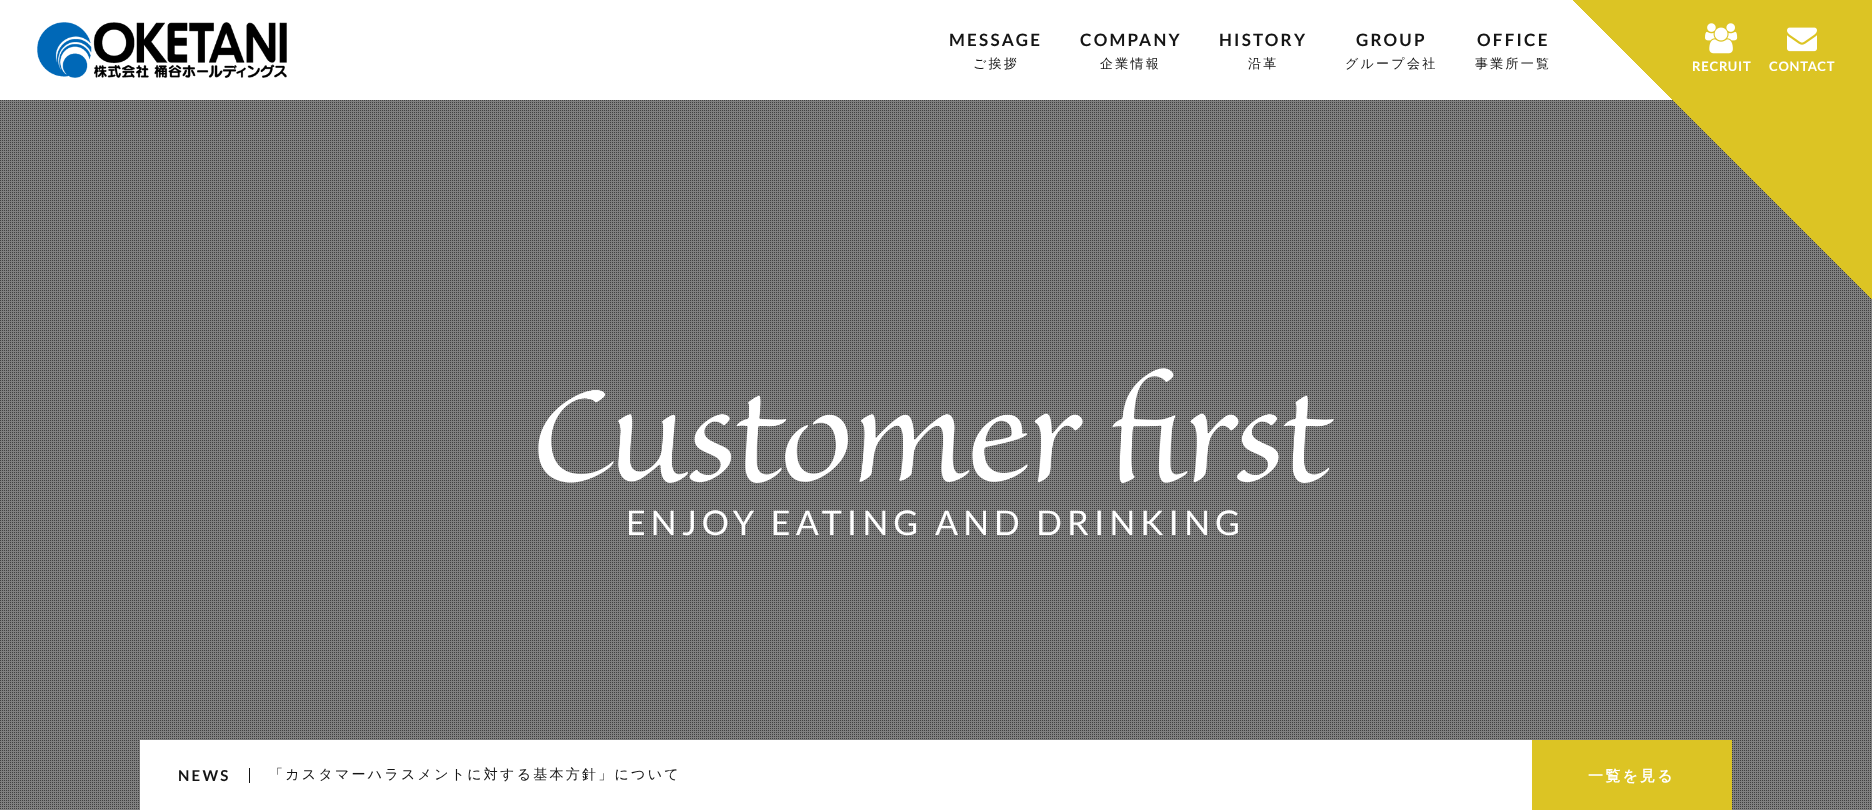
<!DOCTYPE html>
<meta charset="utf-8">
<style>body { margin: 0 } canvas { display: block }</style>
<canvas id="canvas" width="1872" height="810"></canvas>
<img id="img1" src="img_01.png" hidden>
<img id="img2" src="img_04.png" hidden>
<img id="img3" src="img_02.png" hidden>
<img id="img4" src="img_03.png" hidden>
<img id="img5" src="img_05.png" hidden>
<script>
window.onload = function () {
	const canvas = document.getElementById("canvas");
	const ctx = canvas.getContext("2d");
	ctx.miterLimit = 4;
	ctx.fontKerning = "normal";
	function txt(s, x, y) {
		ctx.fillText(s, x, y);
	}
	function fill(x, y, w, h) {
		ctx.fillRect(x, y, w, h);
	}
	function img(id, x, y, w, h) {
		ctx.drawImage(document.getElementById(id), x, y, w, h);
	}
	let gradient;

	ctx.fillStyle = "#FFFFFF";
	fill(0, 0, 1872, 810);
	img("img1", 37, 22, 250, 56);
	ctx.fillStyle = "#808080";
	fill(0, 100, 1872, 710);
	img("img2", 0, 100, 1871, 709);
	gradient = ctx.createLinearGradient(1872, 0, 1572, 300);
	gradient.addColorStop(0.5, "#DCC424");
	gradient.addColorStop(0.5, "rgba(220, 196, 36, 0)");
	ctx.fillStyle = gradient;
	fill(1573, 0, 299, 299);
	img("img3", 1705, 23, 33, 31);
	img("img4", 1787, 27, 30, 25);
	img("img5", 538, 368, 796, 115);
	ctx.fillStyle = "#FFFFFF";
	fill(140, 740, 1392, 70);
	ctx.fillStyle = "#151515";
	fill(249, 768, 1, 15);
	ctx.fillStyle = "#DCC424";
	fill(1532, 740, 200, 70);
	ctx.letterSpacing = "2.25px";
	ctx.font = "bold 17px Lato";
	ctx.fillStyle = "#151515";
	txt("MESSAGE", 949, 46);
	ctx.font = "500 13px WenQuanYi Zen Hei";
	txt("ご挨拶", 973, 68);
	ctx.font = "bold 17px Lato";
	txt("COMPANY", 1080, 46);
	ctx.font = "500 13px WenQuanYi Zen Hei";
	txt("企業情報", 1100, 68);
	ctx.font = "bold 17px Lato";
	txt("HISTORY", 1219, 46);
	ctx.font = "500 13px WenQuanYi Zen Hei";
	txt("沿革", 1248, 68);
	ctx.font = "bold 17px Lato";
	txt("GROUP", 1356, 46);
	ctx.font = "500 13px WenQuanYi Zen Hei";
	txt("グループ会社", 1345, 68);
	ctx.font = "bold 17px Lato";
	txt("OFFICE", 1477, 46);
	ctx.font = "500 13px WenQuanYi Zen Hei";
	txt("事業所一覧", 1475, 68);
	ctx.letterSpacing = "0.75px";
	ctx.font = "bold 13px Lato";
	ctx.fillStyle = "#FFFFFF";
	txt("RECRUIT", 1692, 71);
	txt("CONTACT", 1769, 71);
	ctx.letterSpacing = "5.1px";
	ctx.font = "34px Lato";
	txt("ENJOY EATING AND DRINKING", 626, 535);
	ctx.letterSpacing = "2.25px";
	ctx.font = "bold 15px Lato";
	ctx.fillStyle = "#151515";
	txt("NEWS", 178, 781);
	ctx.font = "500 14px WenQuanYi Zen Hei";
	txt("「カスタマーハラスメントに対する基本方針」について", 269, 779);
	ctx.font = "bold 15px WenQuanYi Zen Hei";
	ctx.fillStyle = "#FFFFFF";
	txt("一覧を見る", 1588, 781);
};
</script>
